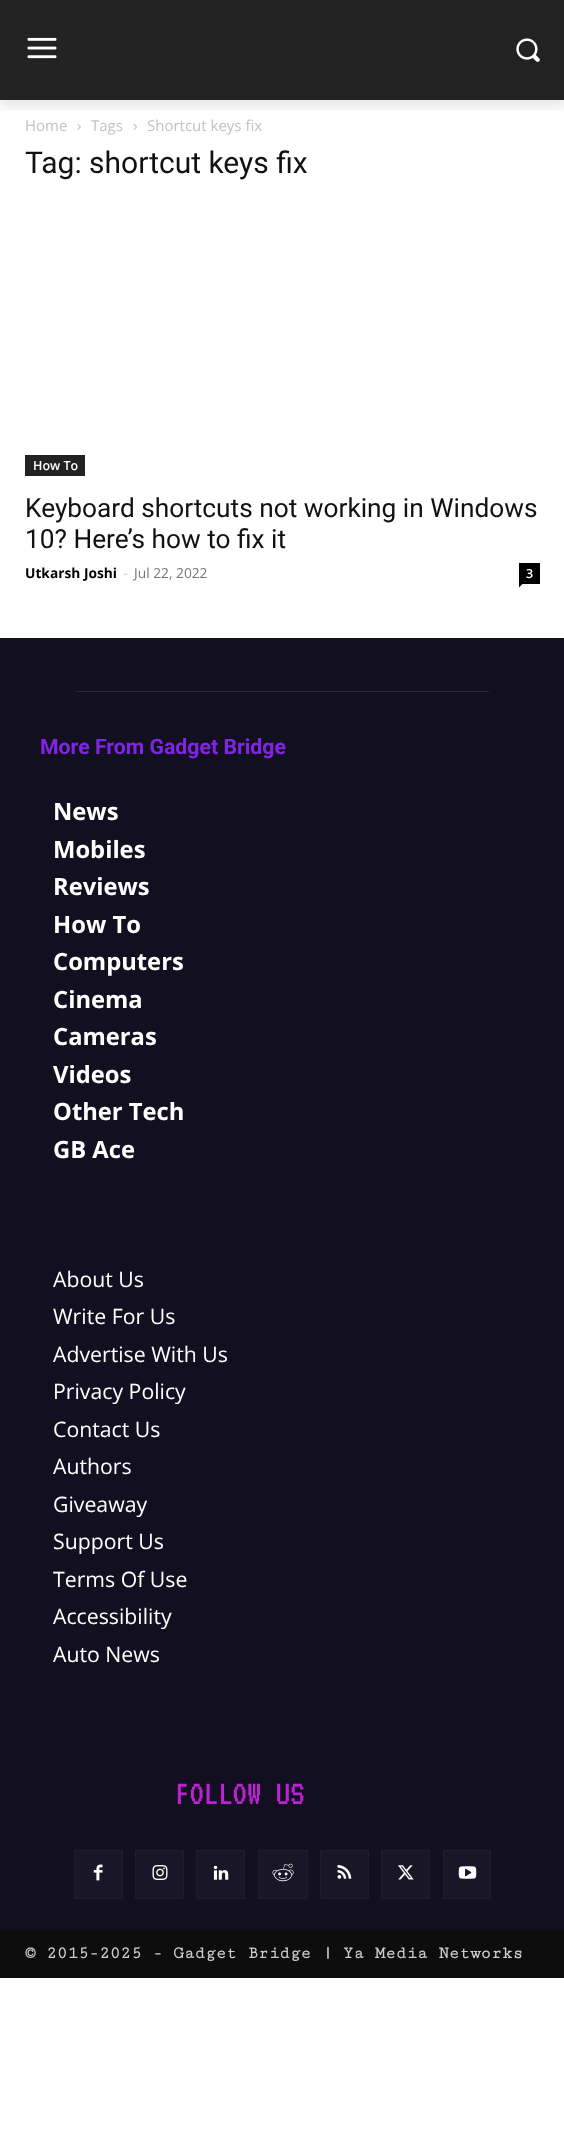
<!DOCTYPE html>
<meta charset="utf-8">
<style>body { margin: 0 } canvas { display: block }</style>
<canvas id="canvas" width="564" height="2153"></canvas>
<img id="img1" src="img_01.png" hidden>
<img id="img2" src="img_02.png" hidden>
<img id="img3" src="img_03.png" hidden>
<img id="img4" src="img_04.png" hidden>
<img id="img5" src="img_05.png" hidden>
<img id="img6" src="img_06.png" hidden>
<img id="img7" src="img_07.png" hidden>
<img id="img8" src="img_08.png" hidden>
<img id="img9" src="img_09.png" hidden>
<img id="img10" src="img_10.png" hidden>
<img id="img11" src="img_11.png" hidden>
<script>
window.onload = function () {
	const canvas = document.getElementById("canvas");
	const ctx = canvas.getContext("2d");
	ctx.miterLimit = 4;
	ctx.fontKerning = "normal";
	function txt(s, x, y) {
		ctx.fillText(s, x, y);
	}
	function fill(x, y, w, h) {
		ctx.fillRect(x, y, w, h);
	}
	function img(id, x, y, w, h) {
		ctx.drawImage(document.getElementById(id), x, y, w, h);
	}

	ctx.fillStyle = "#FFFFFF";
	fill(0, 0, 564, 2153);
	ctx.fillStyle = "#222222";
	fill(0, 0, 564, 100);
	img("img1", 27, 37, 30, 22);
	img("img2", 516, 38, 24, 24);
	ctx.save();
	ctx.beginPath();
	ctx.rect(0, 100, 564, 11);
	ctx.clip();
	ctx.fillStyle = "rgba(0, 0, 0, 0.08)";
	ctx.filter = "blur(5px)";
	ctx.beginPath();
	ctx.rect(0, 8, 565, 100);
	ctx.fill();
	ctx.filter = "none";
	ctx.restore();
	img("img3", 77, 124, 4, 6);
	img("img4", 133, 124, 4, 6);
	fill(25, 455, 60, 21);
	ctx.fillStyle = "#000000";
	fill(519, 563, 21, 21);
	ctx.beginPath();
	ctx.moveTo(519, 584);
	ctx.lineTo(522.5, 584);
	ctx.lineTo(519, 587.5);
	ctx.closePath();
	ctx.fill();
	ctx.fillStyle = "#121020";
	fill(0, 638, 564, 1292);
	ctx.fillStyle = "#2A2836";
	fill(76, 691, 413, 1);
	ctx.fillStyle = "#191727";
	ctx.beginPath();
	ctx.rect(74.5, 1850.5, 48, 48);
	ctx.fill();
	ctx.strokeStyle = "#201E2D";
	ctx.stroke();
	img("img5", 93, 1864, 10, 17);
	ctx.beginPath();
	ctx.rect(135.5, 1850.5, 48, 48);
	ctx.fill();
	ctx.stroke();
	img("img6", 152, 1865, 16, 15);
	ctx.beginPath();
	ctx.rect(196.5, 1850.5, 48, 48);
	ctx.fill();
	ctx.stroke();
	img("img7", 213, 1865, 16, 15);
	ctx.beginPath();
	ctx.rect(258.5, 1850.5, 49, 48);
	ctx.fill();
	ctx.stroke();
	img("img8", 272, 1863, 22, 19);
	ctx.beginPath();
	ctx.rect(320.5, 1850.5, 48, 48);
	ctx.fill();
	ctx.stroke();
	img("img9", 337, 1865, 15, 14);
	ctx.beginPath();
	ctx.rect(381.5, 1850.5, 48, 48);
	ctx.fill();
	ctx.stroke();
	img("img10", 398, 1865, 16, 15);
	ctx.beginPath();
	ctx.rect(443.5, 1850.5, 47, 48);
	ctx.fill();
	ctx.stroke();
	img("img11", 458, 1866, 19, 13);
	ctx.fillStyle = "#0D0D0D";
	fill(0, 1930, 564, 48);
	ctx.font = "15px Open Sans";
	ctx.fillStyle = "#C3C3C3";
	txt("Home", 25, 131);
	txt("Tags", 91, 131);
	txt("Shortcut keys fix", 147, 131);
	ctx.font = "30px Roboto";
	ctx.fillStyle = "#111111";
	txt("Tag: shortcut keys fix", 25, 173);
	ctx.font = "600 12.5px Open Sans";
	ctx.fillStyle = "#FFFFFF";
	txt("How To", 33, 470);
	ctx.font = "26.25px Roboto";
	ctx.fillStyle = "#111111";
	txt("Keyboard shortcuts not working in Windows", 25, 517);
	txt("10? Here’s how to fix it", 25, 548);
	ctx.font = "bold 13.75px Open Sans";
	ctx.fillStyle = "#000000";
	txt("Utkarsh Joshi", 25, 578);
	ctx.font = "13.75px Open Sans";
	ctx.fillStyle = "#CCCCCC";
	txt("-", 123, 578);
	ctx.fillStyle = "#767676";
	txt("Jul 22, 2022", 134, 578);
	ctx.font = "600 12.5px Open Sans";
	ctx.fillStyle = "#FFFFFF";
	txt("3", 526, 578);
	ctx.font = "bold 21.25px Roboto";
	ctx.fillStyle = "#8224E3";
	txt("More From Gadget Bridge", 40, 754);
	ctx.font = "bold 23.75px Open Sans";
	ctx.fillStyle = "#FFFFFF";
	txt("News", 53, 820);
	txt("Mobiles", 53, 858);
	txt("Reviews", 53, 895);
	txt("How To", 53, 933);
	txt("Computers", 53, 970);
	txt("Cinema", 53, 1008);
	txt("Cameras", 53, 1045);
	txt("Videos", 53, 1083);
	txt("Other Tech", 53, 1120);
	txt("GB Ace", 53, 1158);
	ctx.font = "21.25px Open Sans";
	txt("About Us", 53, 1287);
	txt("Write For Us", 53, 1324);
	txt("Advertise With Us", 53, 1362);
	txt("Privacy Policy", 53, 1399);
	txt("Contact Us", 53, 1437);
	txt("Authors", 53, 1474);
	txt("Giveaway", 53, 1512);
	txt("Support Us", 53, 1549);
	txt("Terms Of Use", 53, 1587);
	txt("Accessibility", 53, 1624);
	txt("Auto News", 53, 1662);
	ctx.font = "36px 'VT323'";
	ctx.fillStyle = "#BE21D3";
	txt("FOLLOW US", 175, 1804);
	ctx.font = "bold 17.5px Cutive Mono";
	ctx.fillStyle = "#CCCCCC";
	txt("© 2015-2025 - Gadget Bridge | Ya Media Networks", 25, 1958);
};
</script>
